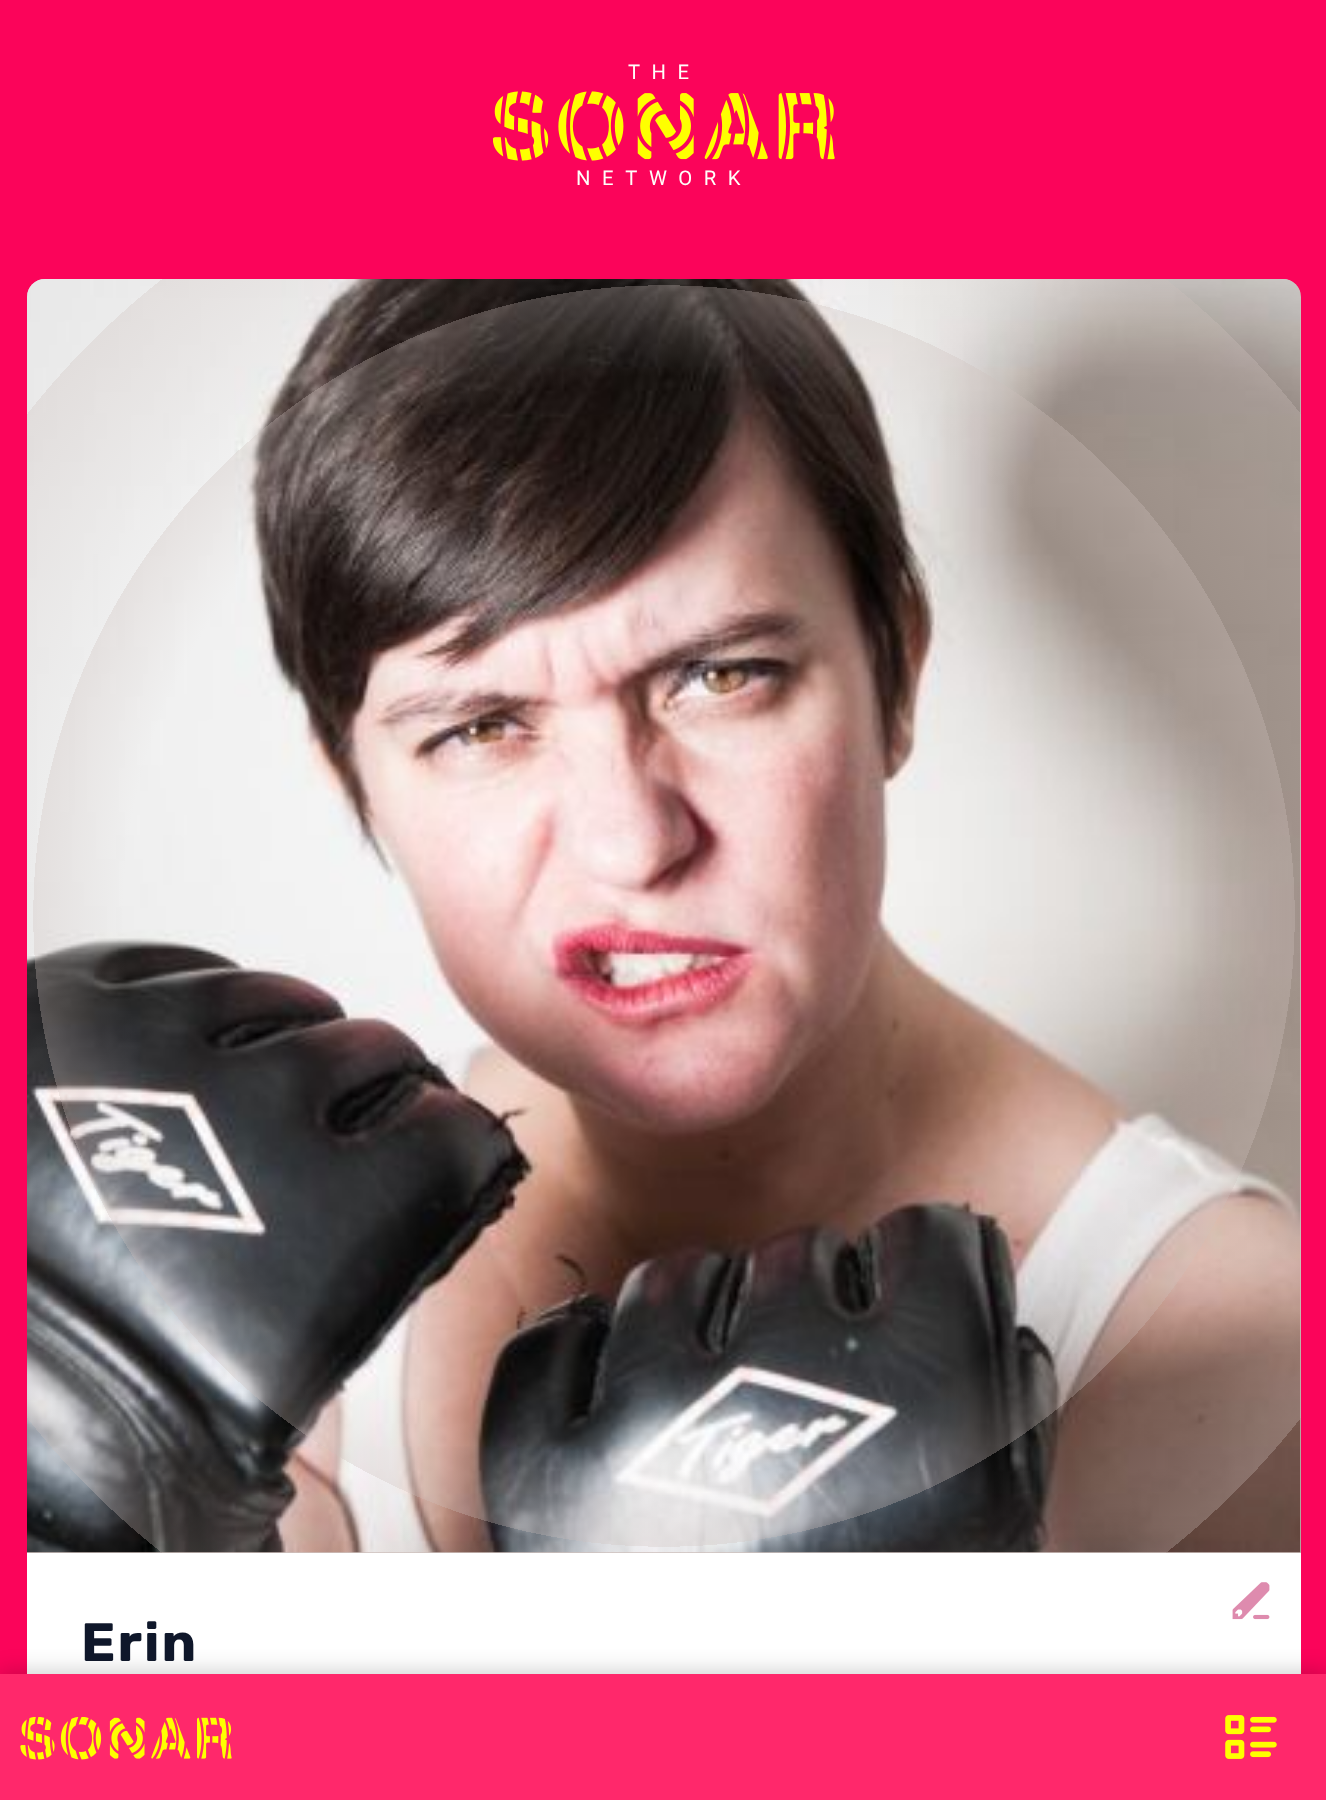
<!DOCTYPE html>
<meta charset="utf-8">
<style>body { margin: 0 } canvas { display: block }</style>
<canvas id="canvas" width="1326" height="1800"></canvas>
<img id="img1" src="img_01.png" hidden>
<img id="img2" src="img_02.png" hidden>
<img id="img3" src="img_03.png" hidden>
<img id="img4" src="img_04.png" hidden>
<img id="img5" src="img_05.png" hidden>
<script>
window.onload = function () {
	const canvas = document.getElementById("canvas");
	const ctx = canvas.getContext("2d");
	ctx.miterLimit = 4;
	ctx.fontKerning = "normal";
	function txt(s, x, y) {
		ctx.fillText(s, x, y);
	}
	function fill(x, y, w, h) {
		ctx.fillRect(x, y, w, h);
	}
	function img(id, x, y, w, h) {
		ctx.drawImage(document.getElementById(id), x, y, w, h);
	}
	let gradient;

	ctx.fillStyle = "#FB045A";
	fill(0, 0, 1326, 1800);
	img("img1", 493, 91, 342, 70);
	ctx.fillStyle = "#CEC0BC";
	ctx.beginPath();
	ctx.roundRect(27, 279, 1274, 1274, [18, 18, 0, 0]);
	ctx.fill();
	img("img2", 27, 279, 1274, 1274);
	gradient = ctx.createRadialGradient(664, 916, 0, 664, 916, 901);
	gradient.addColorStop(0.6, "rgba(206, 192, 188, 0)");
	gradient.addColorStop(0.7, "rgba(206, 192, 188, 0.3)");
	gradient.addColorStop(0.7, "rgba(206, 192, 188, 0)");
	gradient.addColorStop(0.9, "rgba(206, 192, 188, 0.3)");
	gradient.addColorStop(0.9, "rgba(206, 192, 188, 0)");
	ctx.fillStyle = gradient;
	fill(27, 279, 1274, 1274);
	ctx.fillStyle = "#FFFFFF";
	fill(27, 1553, 1274, 121);
	img("img3", 1232, 1582, 38, 38);
	ctx.fillStyle = "rgba(0, 0, 0, 0.2)";
	ctx.filter = "blur(11px)";
	ctx.beginPath();
	ctx.rect(0, 1672, 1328, 126);
	ctx.fill();
	ctx.filter = "none";
	ctx.fillStyle = "#FF286B";
	fill(0, 1674, 1326, 126);
	img("img4", 20, 1717, 212, 43);
	img("img5", 1225, 1715, 52, 44);
	ctx.letterSpacing = "11.5px";
	ctx.font = "20.25px Roboto";
	ctx.fillStyle = "#FFFEFA";
	txt("THE", 628, 79);
	txt("NETWORK", 576, 185);
	ctx.letterSpacing = "2px";
	ctx.font = "bold 54px Rubik";
	ctx.fillStyle = "#0F172A";
	txt("Erin", 81, 1661);
};
</script>
